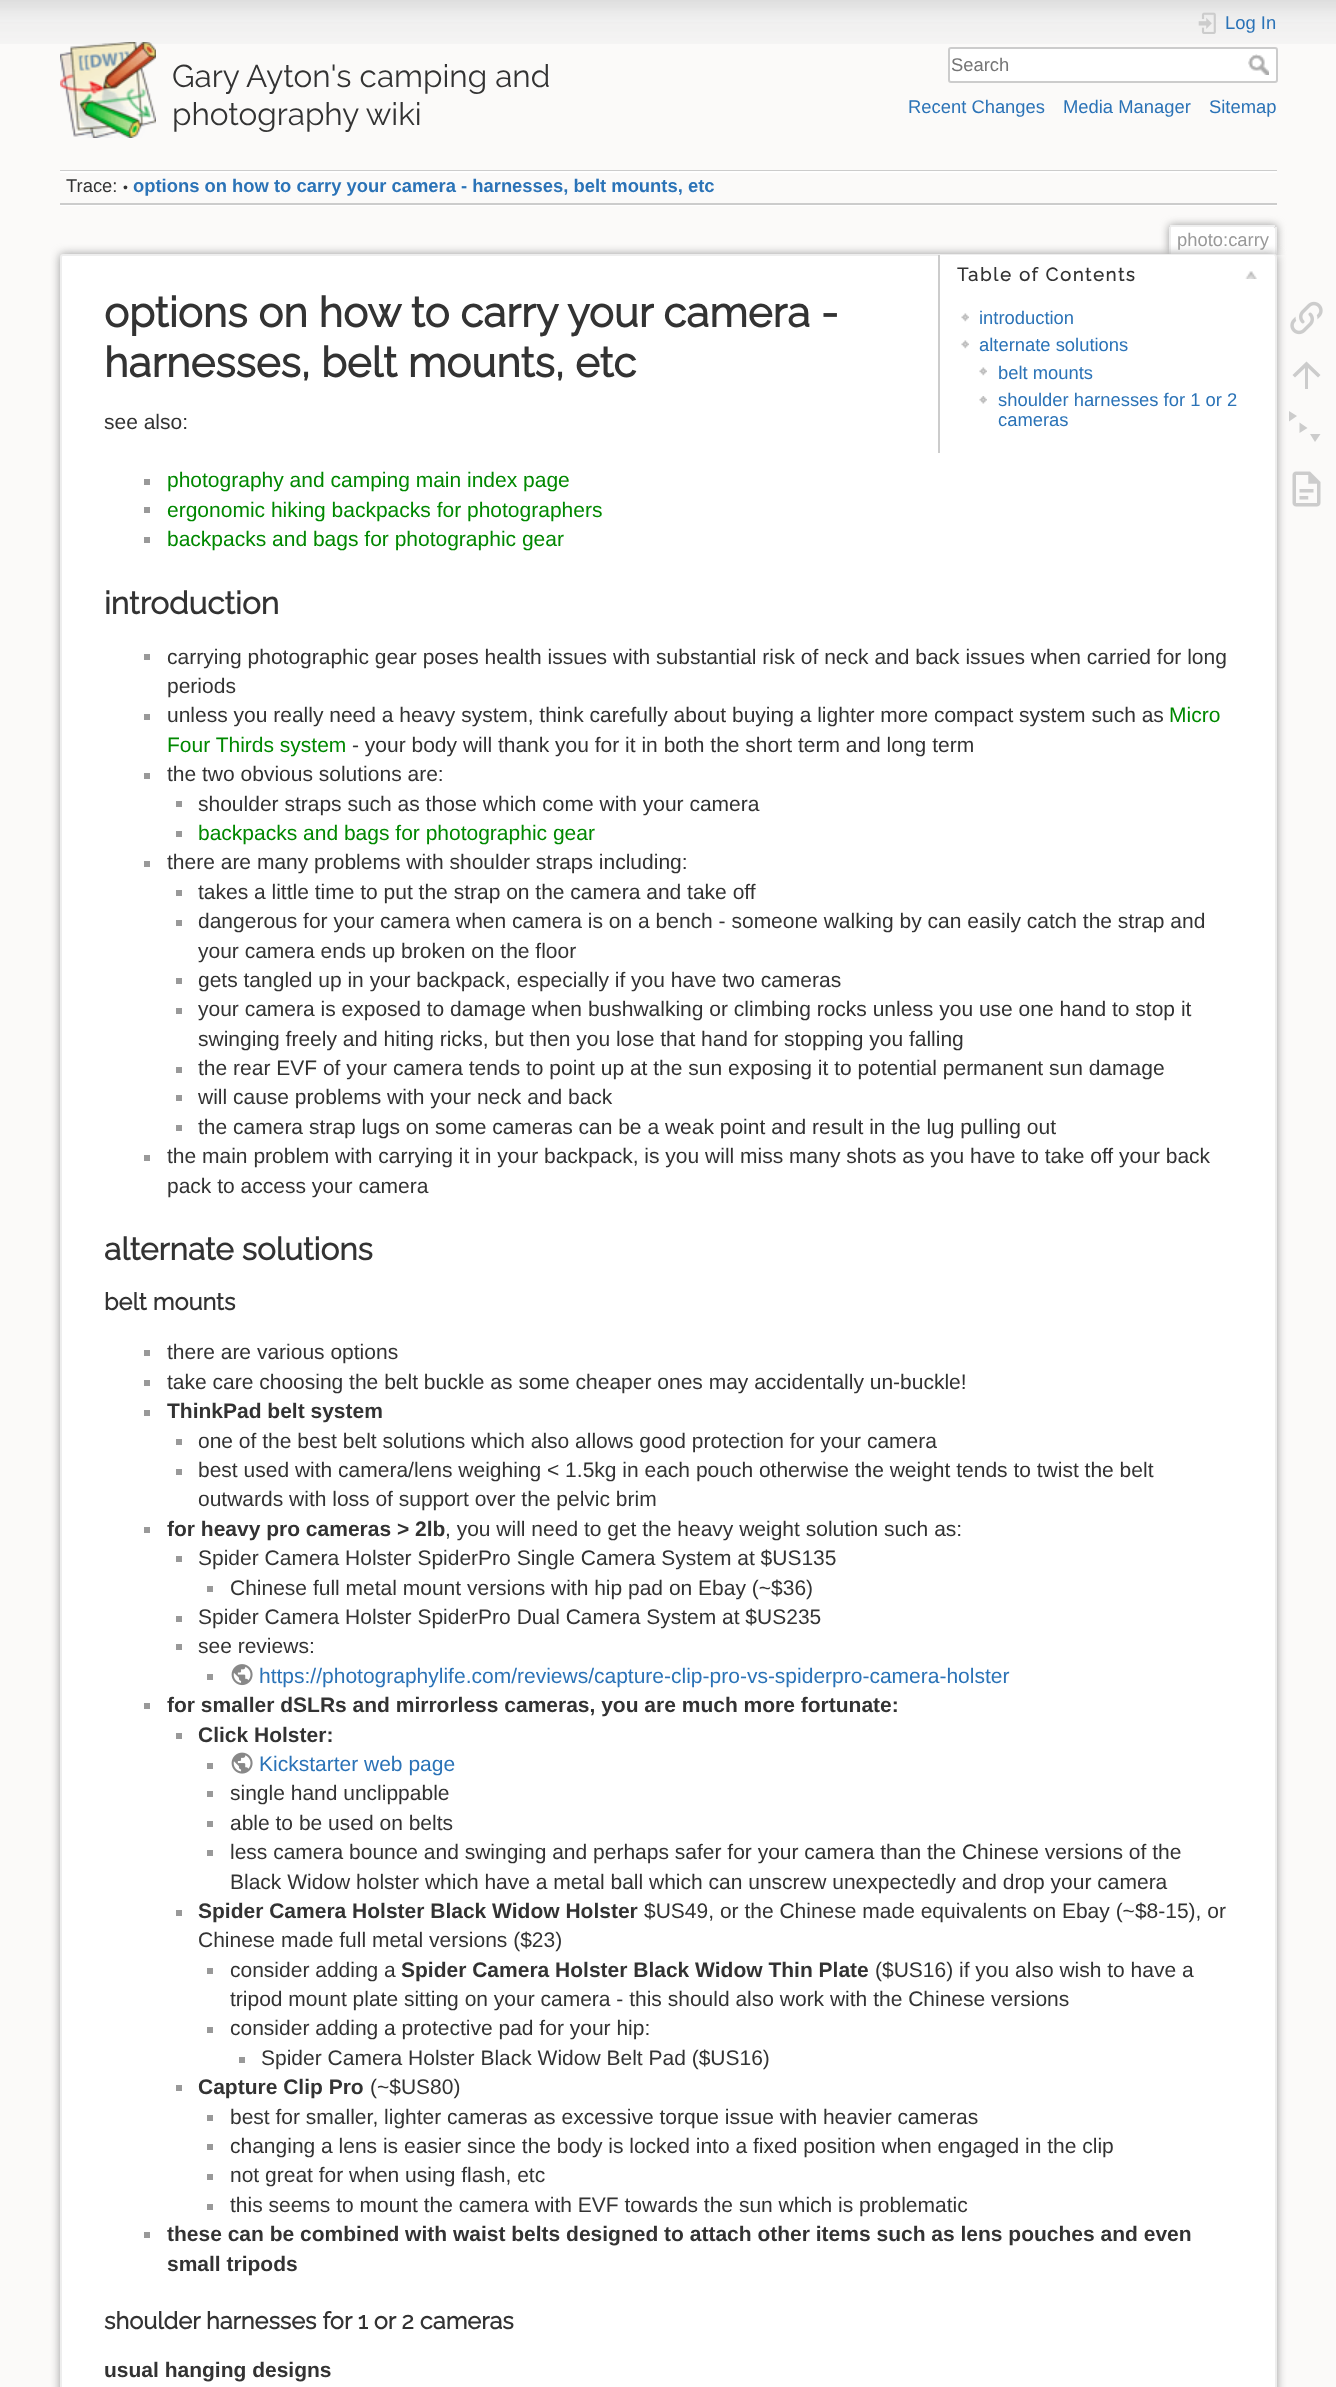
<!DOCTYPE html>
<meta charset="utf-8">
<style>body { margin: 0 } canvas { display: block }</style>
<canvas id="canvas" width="1336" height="2387"></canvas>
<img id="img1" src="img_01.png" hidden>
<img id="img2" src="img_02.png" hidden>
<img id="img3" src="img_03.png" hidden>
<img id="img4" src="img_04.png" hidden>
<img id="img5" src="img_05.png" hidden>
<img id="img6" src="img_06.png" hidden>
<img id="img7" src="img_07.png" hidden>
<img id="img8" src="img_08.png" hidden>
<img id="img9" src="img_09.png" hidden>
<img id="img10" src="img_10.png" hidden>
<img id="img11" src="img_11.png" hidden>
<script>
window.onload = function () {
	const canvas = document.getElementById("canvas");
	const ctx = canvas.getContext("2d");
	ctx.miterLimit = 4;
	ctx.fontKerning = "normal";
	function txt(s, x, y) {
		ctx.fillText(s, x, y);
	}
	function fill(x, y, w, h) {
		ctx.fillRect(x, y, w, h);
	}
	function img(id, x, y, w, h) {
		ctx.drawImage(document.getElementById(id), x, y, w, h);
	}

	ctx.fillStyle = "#FBFAF9";
	fill(0, 0, 1336, 2387);
	img("img1", 0, 0, 1336, 44);
	img("img2", 60, 42, 96, 96);
	img("img3", 1198, 12, 18, 22);
	ctx.fillStyle = "#FFFFFF";
	ctx.beginPath();
	ctx.roundRect(949, 48, 328, 34, 2);
	ctx.fill();
	ctx.strokeStyle = "#CCCCCC";
	ctx.lineWidth = 2;
	ctx.stroke();
	img("img4", 1248, 54, 21, 21);
	ctx.fillStyle = "#CCCCCC";
	fill(60, 170, 1217, 1);
	ctx.fillStyle = "#FFFFFF";
	fill(60, 205, 1217, 1);
	fill(60, 171, 1217, 2);
	ctx.fillStyle = "#CCCCCC";
	fill(60, 203, 1217, 2);
	ctx.save();
	ctx.beginPath();
	ctx.rect(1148, 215, 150, 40);
	ctx.clip();
	ctx.fillStyle = "#999999";
	ctx.filter = "blur(4.5px)";
	ctx.beginPath();
	ctx.roundRect(1169, 225, 108, 30, 3);
	ctx.fill();
	ctx.filter = "none";
	ctx.restore();
	ctx.fillStyle = "#FFFFFF";
	ctx.beginPath();
	ctx.roundRect(1170, 227, 105, 28, [1.5, 1.5, 0, 0]);
	ctx.fill();
	ctx.fillStyle = "#EEEEEE";
	fill(1170, 225, 105, 2);
	fill(1275, 227, 2, 28);
	fill(1169, 227, 2, 28);
	ctx.fillStyle = "#999999";
	ctx.filter = "blur(5px)";
	ctx.beginPath();
	ctx.roundRect(60, 254, 1217, 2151, 3);
	ctx.fill();
	ctx.filter = "none";
	ctx.fillStyle = "#FFFFFF";
	ctx.beginPath();
	ctx.roundRect(61, 255, 1215, 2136, 2);
	ctx.fill();
	ctx.strokeStyle = "#EEEEEE";
	ctx.stroke();
	ctx.beginPath();
	ctx.roundRect(938, 255, 337, 198, [0, 1.5, 0, 0]);
	ctx.fill();
	ctx.fillStyle = "#CCCCCC";
	fill(938, 255, 2, 198);
	img("img5", 1245, 271, 12, 8);
	img("img6", 961, 313, 8, 9);
	img("img6", 961, 340, 8, 9);
	img("img6", 979, 367, 8, 9);
	img("img7", 979, 396, 8, 8);
	ctx.fillStyle = "#999999";
	fill(144, 479, 6, 6);
	fill(144, 507, 6, 6);
	fill(144, 537, 6, 6);
	fill(144, 654, 6, 6);
	fill(144, 714, 6, 6);
	fill(144, 773, 6, 6);
	fill(176, 801, 6, 6);
	fill(176, 831, 6, 6);
	fill(144, 861, 6, 6);
	fill(176, 890, 6, 6);
	fill(176, 920, 6, 6);
	fill(176, 978, 6, 6);
	fill(176, 1008, 6, 6);
	fill(176, 1067, 6, 6);
	fill(176, 1095, 6, 6);
	fill(176, 1125, 6, 6);
	fill(144, 1155, 6, 6);
	fill(144, 1350, 6, 6);
	fill(144, 1380, 6, 6);
	fill(144, 1410, 6, 6);
	fill(176, 1439, 6, 6);
	fill(176, 1469, 6, 6);
	fill(144, 1527, 6, 6);
	fill(176, 1556, 6, 6);
	fill(207, 1586, 6, 6);
	fill(176, 1616, 6, 6);
	fill(176, 1644, 6, 6);
	fill(207, 1674, 6, 6);
	img("img8", 231, 1664, 22, 22);
	fill(144, 1703, 6, 6);
	fill(176, 1733, 6, 6);
	fill(207, 1763, 6, 6);
	img("img9", 231, 1752, 22, 22);
	fill(207, 1791, 6, 6);
	fill(207, 1821, 6, 6);
	fill(207, 1850, 6, 6);
	fill(176, 1910, 6, 6);
	fill(207, 1968, 6, 6);
	fill(207, 2027, 6, 6);
	fill(239, 2057, 6, 6);
	fill(176, 2085, 6, 6);
	fill(207, 2115, 6, 6);
	fill(207, 2144, 6, 6);
	fill(207, 2174, 6, 6);
	fill(207, 2204, 6, 6);
	fill(144, 2232, 6, 6);
	img("img10", 1290, 301, 33, 34);
	ctx.fillStyle = "#CCCCCC";
	ctx.beginPath();
	ctx.moveTo(1308, 389);
	ctx.lineTo(1305, 389);
	ctx.lineTo(1305, 368);
	ctx.lineTo(1295, 377.5);
	ctx.lineTo(1292.5, 375);
	ctx.lineTo(1306.5, 361.5);
	ctx.lineTo(1320.5, 375);
	ctx.lineTo(1318, 377.5);
	ctx.lineTo(1308, 368);
	ctx.closePath();
	ctx.fill();
	ctx.beginPath();
	ctx.moveTo(1289, 411);
	ctx.lineTo(1297, 416);
	ctx.lineTo(1289, 421.5);
	ctx.closePath();
	ctx.moveTo(1299.5, 422.5);
	ctx.lineTo(1307.5, 428);
	ctx.lineTo(1299.5, 433);
	ctx.closePath();
	ctx.moveTo(1310, 434);
	ctx.lineTo(1320.5, 434);
	ctx.lineTo(1315, 442);
	ctx.closePath();
	ctx.fill();
	img("img11", 1292, 471, 29, 36);
	ctx.font = "100 31.5px Raleway";
	ctx.fillStyle = "#333333";
	txt("Gary Ayton's camping and", 172, 87);
	txt("photography wiki", 172, 125);
	ctx.font = "18.4px Liberation Sans";
	ctx.fillStyle = "#2B73B7";
	txt("Log In", 1225, 29);
	ctx.fillStyle = "#757575";
	txt("Search", 951, 71);
	ctx.fillStyle = "#2B73B7";
	txt("Recent Changes", 908, 113);
	txt("Media Manager", 1063, 113);
	txt("Sitemap", 1209, 113);
	ctx.fillStyle = "#333333";
	txt("Trace:", 66, 192);
	ctx.font = "14px Liberation Sans";
	txt("•", 123, 192);
	ctx.font = "bold 18.4px Liberation Sans";
	ctx.fillStyle = "#2B73B7";
	txt("options on how to carry your camera - harnesses, belt mounts, etc", 133, 192);
	ctx.font = "18.4px Liberation Sans";
	ctx.fillStyle = "#999999";
	txt("photo:carry", 1177, 246);
	ctx.font = "bold 42px Raleway";
	ctx.fillStyle = "#333333";
	txt("options on how to carry your camera -", 104, 327);
	txt("harnesses, belt mounts, etc", 104, 377);
	ctx.letterSpacing = "1.8px";
	ctx.font = "bold 18.4px Raleway";
	txt("Table of Contents", 957, 281);
	ctx.letterSpacing = "0px";
	ctx.font = "18.4px Liberation Sans";
	ctx.fillStyle = "#2B73B7";
	txt("introduction", 979, 324);
	txt("alternate solutions", 979, 351);
	txt("belt mounts", 998, 379);
	txt("shoulder harnesses for 1 or 2", 998, 406);
	txt("cameras", 998, 426);
	ctx.font = "21px Liberation Sans";
	ctx.fillStyle = "#333333";
	txt("see also:", 104, 429);
	ctx.fillStyle = "#008800";
	txt("photography and camping main index page", 167, 487);
	txt("ergonomic hiking backpacks for photographers", 167, 517);
	txt("backpacks and bags for photographic gear", 167, 546);
	ctx.font = "bold 31.5px Raleway";
	ctx.fillStyle = "#333333";
	txt("introduction", 104, 614);
	ctx.font = "21px Liberation Sans";
	txt("carrying photographic gear poses health issues with substantial risk of neck and back issues when carried for long", 167, 664);
	txt("periods", 167, 693);
	txt("unless you really need a heavy system, think carefully about buying a lighter more compact system such as", 167, 722);
	ctx.fillStyle = "#008800";
	txt("Micro", 1169, 722);
	txt("Four Thirds system", 167, 752);
	ctx.fillStyle = "#333333";
	txt("- your body will thank you for it in both the short term and long term", 352, 752);
	txt("the two obvious solutions are:", 167, 781);
	txt("shoulder straps such as those which come with your camera", 198, 811);
	ctx.fillStyle = "#008800";
	txt("backpacks and bags for photographic gear", 198, 840);
	ctx.fillStyle = "#333333";
	txt("there are many problems with shoulder straps including:", 167, 869);
	txt("takes a little time to put the strap on the camera and take off", 198, 899);
	txt("dangerous for your camera when camera is on a bench - someone walking by can easily catch the strap and", 198, 928);
	txt("your camera ends up broken on the floor", 198, 958);
	txt("gets tangled up in your backpack, especially if you have two cameras", 198, 987);
	txt("your camera is exposed to damage when bushwalking or climbing rocks unless you use one hand to stop it", 198, 1016);
	txt("swinging freely and hiting ricks, but then you lose that hand for stopping you falling", 198, 1046);
	txt("the rear EVF of your camera tends to point up at the sun exposing it to potential permanent sun damage", 198, 1075);
	txt("will cause problems with your neck and back", 198, 1104);
	txt("the camera strap lugs on some cameras can be a weak point and result in the lug pulling out", 198, 1134);
	txt("the main problem with carrying it in your backpack, is you will miss many shots as you have to take off your back", 167, 1163);
	txt("pack to access your camera", 167, 1193);
	ctx.font = "bold 31.5px Raleway";
	txt("alternate solutions", 104, 1260);
	ctx.font = "bold 23.6px Raleway";
	txt("belt mounts", 104, 1310);
	ctx.font = "21px Liberation Sans";
	txt("there are various options", 167, 1359);
	txt("take care choosing the belt buckle as some cheaper ones may accidentally un-buckle!", 167, 1389);
	ctx.font = "bold 21px Liberation Sans";
	txt("ThinkPad belt system", 167, 1418);
	ctx.font = "21px Liberation Sans";
	txt("one of the best belt solutions which also allows good protection for your camera", 198, 1448);
	txt("best used with camera/lens weighing < 1.5kg in each pouch otherwise the weight tends to twist the belt", 198, 1477);
	txt("outwards with loss of support over the pelvic brim", 198, 1506);
	ctx.font = "bold 21px Liberation Sans";
	txt("for heavy pro cameras > 2lb", 167, 1536);
	ctx.font = "21px Liberation Sans";
	txt(", you will need to get the heavy weight solution such as:", 445, 1536);
	txt("Spider Camera Holster SpiderPro Single Camera System at $US135", 198, 1565);
	txt("Chinese full metal mount versions with hip pad on Ebay (~$36)", 230, 1595);
	txt("Spider Camera Holster SpiderPro Dual Camera System at $US235", 198, 1624);
	txt("see reviews:", 198, 1653);
	ctx.fillStyle = "#2B73B7";
	txt("https://photographylife.com/reviews/capture-clip-pro-vs-spiderpro-camera-holster", 259, 1683);
	ctx.font = "bold 21px Liberation Sans";
	ctx.fillStyle = "#333333";
	txt("for smaller dSLRs and mirrorless cameras, you are much more fortunate:", 167, 1712);
	txt("Click Holster:", 198, 1742);
	ctx.font = "21px Liberation Sans";
	ctx.fillStyle = "#2B73B7";
	txt("Kickstarter web page", 259, 1771);
	ctx.fillStyle = "#333333";
	txt("single hand unclippable", 230, 1800);
	txt("able to be used on belts", 230, 1830);
	txt("less camera bounce and swinging and perhaps safer for your camera than the Chinese versions of the", 230, 1859);
	txt("Black Widow holster which have a metal ball which can unscrew unexpectedly and drop your camera", 230, 1889);
	ctx.font = "bold 21px Liberation Sans";
	txt("Spider Camera Holster Black Widow Holster", 198, 1918);
	ctx.font = "21px Liberation Sans";
	txt("$US49, or the Chinese made equivalents on Ebay (~$8-15), or", 644, 1918);
	txt("Chinese made full metal versions ($23)", 198, 1947);
	txt("consider adding a", 230, 1977);
	ctx.font = "bold 21px Liberation Sans";
	txt("Spider Camera Holster Black Widow Thin Plate", 401, 1977);
	ctx.font = "21px Liberation Sans";
	txt("($US16) if you also wish to have a", 875, 1977);
	txt("tripod mount plate sitting on your camera - this should also work with the Chinese versions", 230, 2006);
	txt("consider adding a protective pad for your hip:", 230, 2035);
	txt("Spider Camera Holster Black Widow Belt Pad ($US16)", 261, 2065);
	ctx.font = "bold 21px Liberation Sans";
	txt("Capture Clip Pro", 198, 2094);
	ctx.font = "21px Liberation Sans";
	txt("(~$US80)", 370, 2094);
	txt("best for smaller, lighter cameras as excessive torque issue with heavier cameras", 230, 2124);
	txt("changing a lens is easier since the body is locked into a fixed position when engaged in the clip", 230, 2153);
	txt("not great for when using flash, etc", 230, 2182);
	txt("this seems to mount the camera with EVF towards the sun which is problematic", 230, 2212);
	ctx.font = "bold 21px Liberation Sans";
	txt("these can be combined with waist belts designed to attach other items such as lens pouches and even", 167, 2241);
	txt("small tripods", 167, 2271);
	ctx.font = "bold 23.6px Raleway";
	txt("shoulder harnesses for 1 or 2 cameras", 104, 2329);
	ctx.font = "bold 21px Liberation Sans";
	txt("usual hanging designs", 104, 2377);
};
</script>
